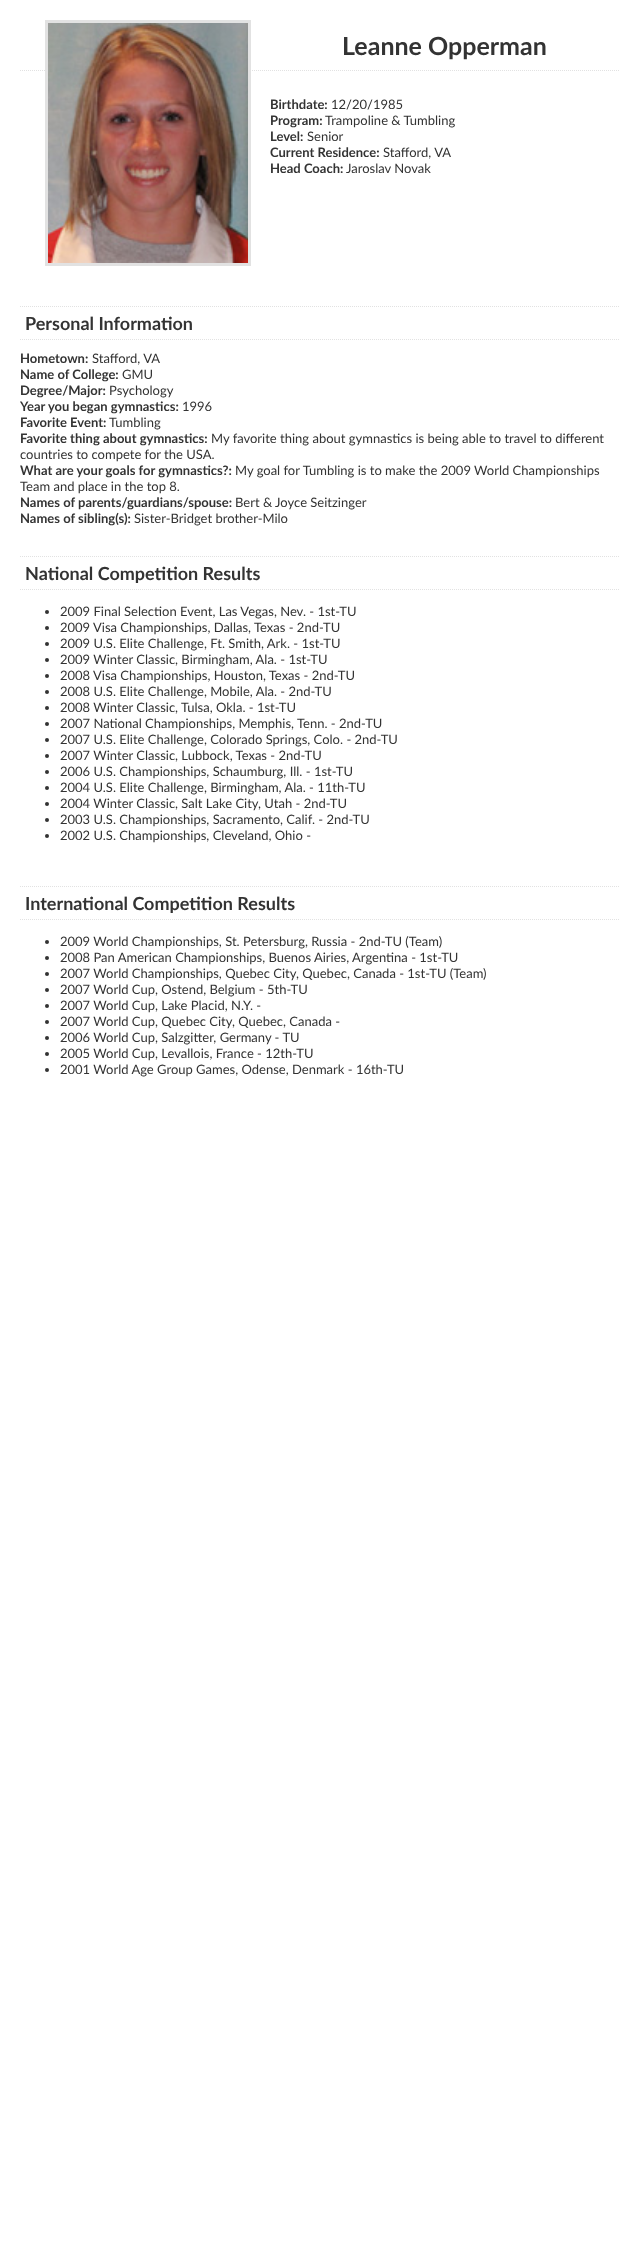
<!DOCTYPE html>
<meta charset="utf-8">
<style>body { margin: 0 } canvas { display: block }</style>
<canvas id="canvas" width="639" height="2266"></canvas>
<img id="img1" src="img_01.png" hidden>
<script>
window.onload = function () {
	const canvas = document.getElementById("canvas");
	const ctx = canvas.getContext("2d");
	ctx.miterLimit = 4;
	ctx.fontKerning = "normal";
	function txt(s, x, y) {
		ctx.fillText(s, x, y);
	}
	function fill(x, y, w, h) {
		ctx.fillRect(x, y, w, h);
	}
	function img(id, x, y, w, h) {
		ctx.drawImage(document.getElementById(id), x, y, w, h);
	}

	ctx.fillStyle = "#FFFFFF";
	fill(0, 0, 639, 2266);
	ctx.beginPath();
	ctx.moveTo(20, 70.5);
	ctx.lineTo(619, 70.5);
	ctx.strokeStyle = "#E2E2E2";
	ctx.setLineDash([1, 1]);
	ctx.stroke();
	ctx.lineWidth = 3;
	ctx.setLineDash([]);
	ctx.strokeRect(46.5, 21.5, 203, 243);
	img("img1", 48, 23, 200, 240);
	ctx.beginPath();
	ctx.moveTo(20, 306.5);
	ctx.lineTo(619, 306.5);
	ctx.lineWidth = 1;
	ctx.setLineDash([1, 1]);
	ctx.stroke();
	ctx.beginPath();
	ctx.moveTo(20, 339.5);
	ctx.lineTo(619, 339.5);
	ctx.stroke();
	ctx.beginPath();
	ctx.moveTo(20, 556.5);
	ctx.lineTo(619, 556.5);
	ctx.stroke();
	ctx.beginPath();
	ctx.moveTo(20, 589.5);
	ctx.lineTo(619, 589.5);
	ctx.stroke();
	ctx.fillStyle = "#333333";
	ctx.beginPath();
	ctx.arc(47, 612, 2, 0, Math.PI * 2);
	ctx.fill();
	ctx.beginPath();
	ctx.arc(47, 628, 2, 0, Math.PI * 2);
	ctx.fill();
	ctx.beginPath();
	ctx.arc(47, 644, 2, 0, Math.PI * 2);
	ctx.fill();
	ctx.beginPath();
	ctx.arc(47, 660, 2, 0, Math.PI * 2);
	ctx.fill();
	ctx.beginPath();
	ctx.arc(47, 676, 2, 0, Math.PI * 2);
	ctx.fill();
	ctx.beginPath();
	ctx.arc(47, 692, 2, 0, Math.PI * 2);
	ctx.fill();
	ctx.beginPath();
	ctx.arc(47, 708, 2, 0, Math.PI * 2);
	ctx.fill();
	ctx.beginPath();
	ctx.arc(47, 724, 2, 0, Math.PI * 2);
	ctx.fill();
	ctx.beginPath();
	ctx.arc(47, 740, 2, 0, Math.PI * 2);
	ctx.fill();
	ctx.beginPath();
	ctx.arc(47, 756, 2, 0, Math.PI * 2);
	ctx.fill();
	ctx.beginPath();
	ctx.arc(47, 772, 2, 0, Math.PI * 2);
	ctx.fill();
	ctx.beginPath();
	ctx.arc(47, 788, 2, 0, Math.PI * 2);
	ctx.fill();
	ctx.beginPath();
	ctx.arc(47, 804, 2, 0, Math.PI * 2);
	ctx.fill();
	ctx.beginPath();
	ctx.arc(47, 820, 2, 0, Math.PI * 2);
	ctx.fill();
	ctx.beginPath();
	ctx.arc(47, 836, 2, 0, Math.PI * 2);
	ctx.fill();
	ctx.beginPath();
	ctx.moveTo(20, 886.5);
	ctx.lineTo(619, 886.5);
	ctx.stroke();
	ctx.beginPath();
	ctx.moveTo(20, 919.5);
	ctx.lineTo(619, 919.5);
	ctx.stroke();
	ctx.beginPath();
	ctx.arc(47, 942, 2, 0, Math.PI * 2);
	ctx.fill();
	ctx.beginPath();
	ctx.arc(47, 958, 2, 0, Math.PI * 2);
	ctx.fill();
	ctx.beginPath();
	ctx.arc(47, 974, 2, 0, Math.PI * 2);
	ctx.fill();
	ctx.beginPath();
	ctx.arc(47, 990, 2, 0, Math.PI * 2);
	ctx.fill();
	ctx.beginPath();
	ctx.arc(47, 1006, 2, 0, Math.PI * 2);
	ctx.fill();
	ctx.beginPath();
	ctx.arc(47, 1022, 2, 0, Math.PI * 2);
	ctx.fill();
	ctx.beginPath();
	ctx.arc(47, 1038, 2, 0, Math.PI * 2);
	ctx.fill();
	ctx.beginPath();
	ctx.arc(47, 1054, 2, 0, Math.PI * 2);
	ctx.fill();
	ctx.beginPath();
	ctx.arc(47, 1070, 2, 0, Math.PI * 2);
	ctx.fill();
	ctx.font = "bold 25px Lato";
	txt("Leanne Opperman", 342, 55);
	ctx.font = "bold 13px Lato";
	txt("Birthdate:", 270, 109);
	ctx.font = "13px Lato";
	txt("12/20/1985", 331, 109);
	ctx.font = "bold 13px Lato";
	txt("Program:", 270, 125);
	ctx.font = "13px Lato";
	txt("Trampoline & Tumbling", 325, 125);
	ctx.font = "bold 13px Lato";
	txt("Level:", 270, 141);
	ctx.font = "13px Lato";
	txt("Senior", 307, 141);
	ctx.font = "bold 13px Lato";
	txt("Current Residence:", 270, 157);
	ctx.font = "13px Lato";
	txt("Stafford, VA", 383, 157);
	ctx.font = "bold 13px Lato";
	txt("Head Coach:", 270, 173);
	ctx.font = "13px Lato";
	txt("Jaroslav Novak", 346, 173);
	ctx.font = "bold 18px Lato";
	txt("Personal Information", 25, 330);
	ctx.font = "bold 13px Lato";
	txt("Hometown:", 20, 363);
	ctx.font = "13px Lato";
	txt("Stafford, VA", 92, 363);
	ctx.font = "bold 13px Lato";
	txt("Name of College:", 20, 379);
	ctx.font = "13px Lato";
	txt("GMU", 122, 379);
	ctx.font = "bold 13px Lato";
	txt("Degree/Major:", 20, 395);
	ctx.font = "13px Lato";
	txt("Psychology", 109, 395);
	ctx.font = "bold 13px Lato";
	txt("Year you began gymnastics:", 20, 411);
	ctx.font = "13px Lato";
	txt("1996", 182, 411);
	ctx.font = "bold 13px Lato";
	txt("Favorite Event:", 20, 427);
	ctx.font = "13px Lato";
	txt("Tumbling", 109, 427);
	ctx.font = "bold 13px Lato";
	txt("Favorite thing about gymnastics:", 20, 443);
	ctx.font = "13px Lato";
	txt("My favorite thing about gymnastics is being able to travel to different", 211, 443);
	txt("countries to compete for the USA.", 20, 459);
	ctx.font = "bold 13px Lato";
	txt("What are your goals for gymnastics?:", 20, 475);
	ctx.font = "13px Lato";
	txt("My goal for Tumbling is to make the 2009 World Championships", 235, 475);
	txt("Team and place in the top 8.", 20, 491);
	ctx.font = "bold 13px Lato";
	txt("Names of parents/guardians/spouse:", 20, 507);
	ctx.font = "13px Lato";
	txt("Bert & Joyce Seitzinger", 235, 507);
	ctx.font = "bold 13px Lato";
	txt("Names of sibling(s):", 20, 523);
	ctx.font = "13px Lato";
	txt("Sister-Bridget brother-Milo", 134, 523);
	ctx.font = "bold 18px Lato";
	txt("National Competition Results", 25, 580);
	ctx.font = "13px Lato";
	txt("2009 Final Selection Event, Las Vegas, Nev. - 1st-TU", 60, 616);
	txt("2009", 60, 632);
	txt("Visa Championships, Dallas, Texas - 2nd-TU", 93, 632);
	txt("2009 U.S. Elite Challenge, Ft. Smith, Ark. - 1st-TU", 60, 648);
	txt("2009 Winter Classic, Birmingham, Ala. - 1st-TU", 60, 664);
	txt("2008", 60, 680);
	txt("Visa Championships, Houston, Texas - 2nd-TU", 93, 680);
	txt("2008 U.S. Elite Challenge, Mobile, Ala. - 2nd-TU", 60, 696);
	txt("2008 Winter Classic, Tulsa, Okla. - 1st-TU", 60, 712);
	txt("2007 National Championships, Memphis, Tenn. - 2nd-TU", 60, 728);
	txt("2007 U.S. Elite Challenge, Colorado Springs, Colo. - 2nd-TU", 60, 744);
	txt("2007 Winter Classic, Lubbock, Texas - 2nd-TU", 60, 760);
	txt("2006 U.S. Championships, Schaumburg, Ill. - 1st-TU", 60, 776);
	txt("2004 U.S. Elite Challenge, Birmingham, Ala. - 11th-TU", 60, 792);
	txt("2004 Winter Classic, Salt Lake City, Utah - 2nd-TU", 60, 808);
	txt("2003 U.S. Championships, Sacramento, Calif. - 2nd-TU", 60, 824);
	txt("2002 U.S. Championships, Cleveland, Ohio -", 60, 840);
	ctx.font = "bold 18px Lato";
	txt("International Competition Results", 25, 910);
	ctx.font = "13px Lato";
	txt("2009 World Championships, St. Petersburg, Russia - 2nd-TU (Team)", 60, 946);
	txt("2008 Pan American Championships, Buenos Airies, Argentina - 1st-TU", 60, 962);
	txt("2007 World Championships, Quebec City, Quebec, Canada - 1st-TU (Team)", 60, 978);
	txt("2007 World Cup, Ostend, Belgium - 5th-TU", 60, 994);
	txt("2007 World Cup, Lake Placid, N.Y. -", 60, 1010);
	txt("2007 World Cup, Quebec City, Quebec, Canada -", 60, 1026);
	txt("2006 World Cup, Salzgitter, Germany - TU", 60, 1042);
	txt("2005 World Cup, Levallois, France - 12th-TU", 60, 1058);
	txt("2001 World Age Group Games, Odense, Denmark - 16th-TU", 60, 1074);
};
</script>
